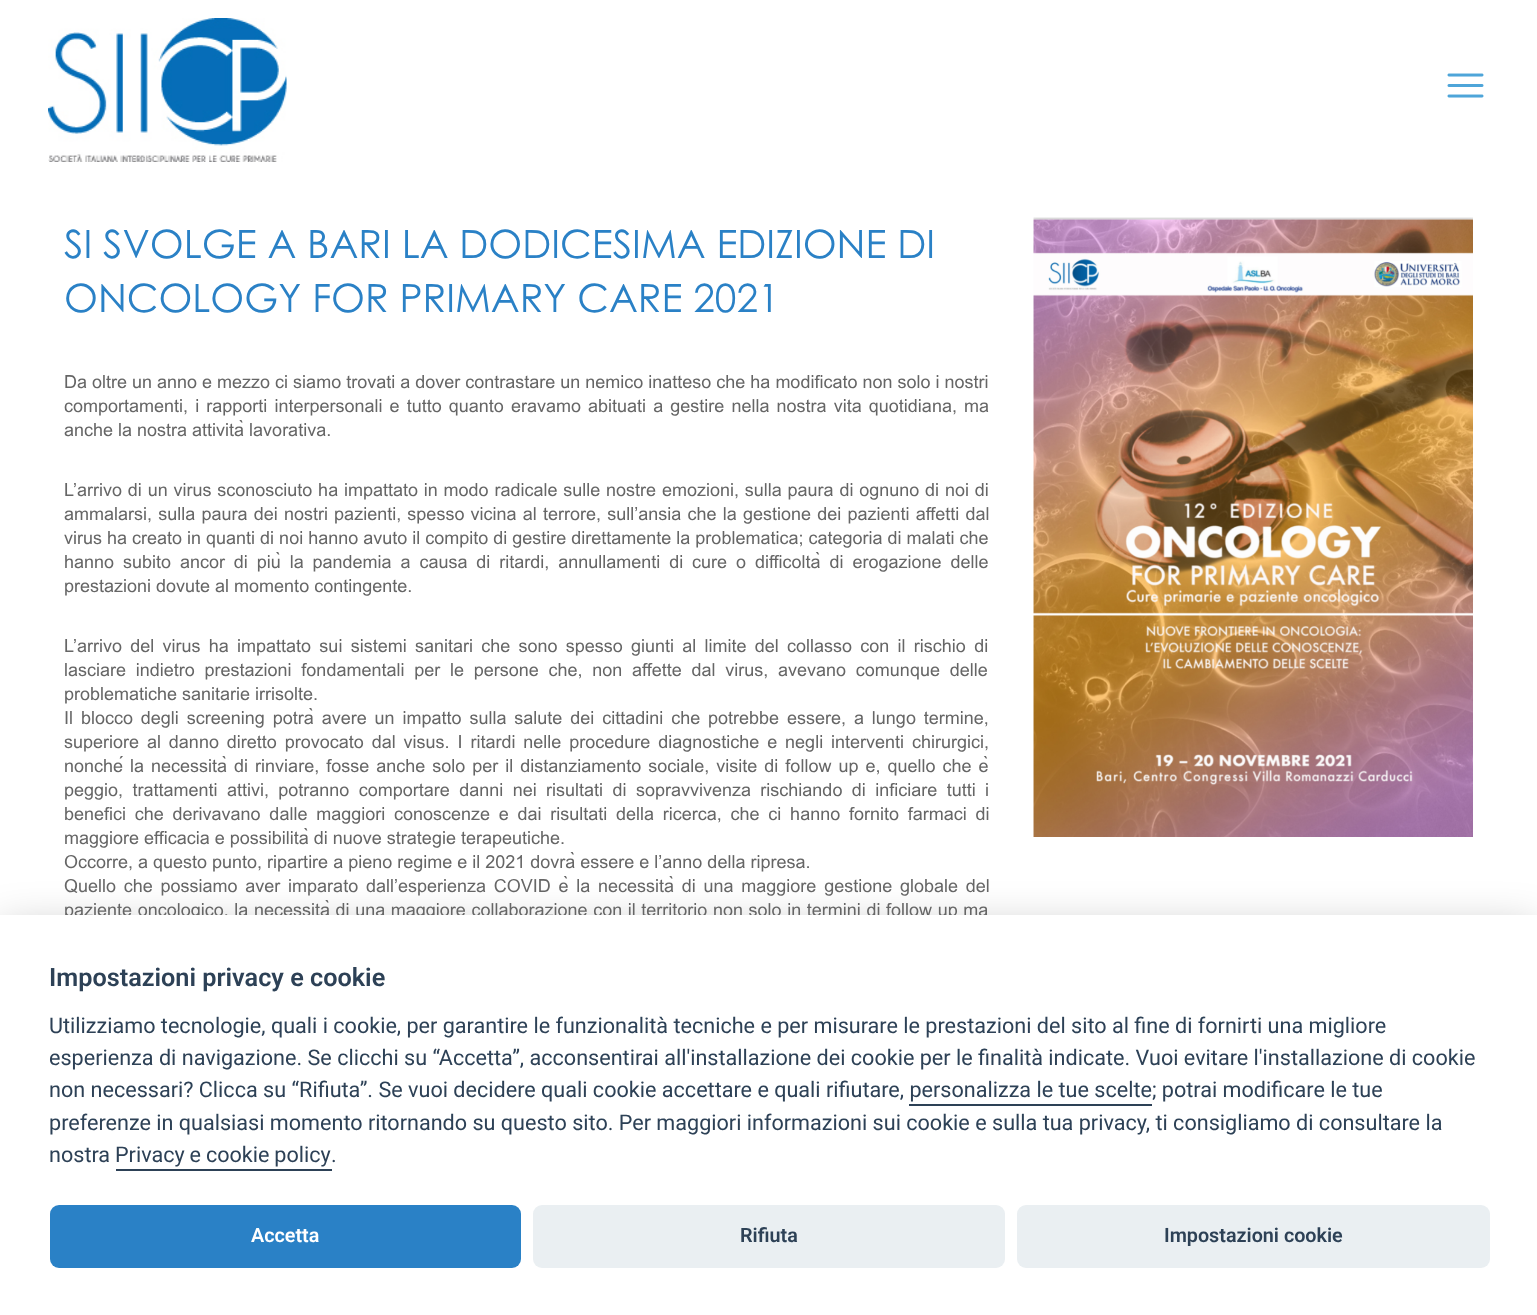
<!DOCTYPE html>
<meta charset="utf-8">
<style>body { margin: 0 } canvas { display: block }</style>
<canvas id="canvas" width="1537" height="1315"></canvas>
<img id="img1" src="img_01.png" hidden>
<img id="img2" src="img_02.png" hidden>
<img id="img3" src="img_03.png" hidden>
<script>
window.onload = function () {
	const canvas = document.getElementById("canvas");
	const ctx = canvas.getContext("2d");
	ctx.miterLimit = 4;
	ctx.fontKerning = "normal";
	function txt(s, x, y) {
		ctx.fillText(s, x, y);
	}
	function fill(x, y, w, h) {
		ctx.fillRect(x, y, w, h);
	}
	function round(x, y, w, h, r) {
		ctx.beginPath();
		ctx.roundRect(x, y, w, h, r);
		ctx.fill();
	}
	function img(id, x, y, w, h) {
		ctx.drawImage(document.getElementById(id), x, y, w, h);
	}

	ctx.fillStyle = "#FFFFFF";
	fill(0, 0, 1537, 1315);
	img("img1", 48, 18, 239, 144);
	img("img2", 1447, 73, 37, 25);
	img("img3", 1033, 217, 440, 620);
	ctx.fillStyle = "rgba(2, 2, 3, 0.28)";
	ctx.filter = "blur(22.5px)";
	ctx.beginPath();
	ctx.rect(0, 930, 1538, 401);
	ctx.fill();
	ctx.filter = "none";
	ctx.font = "39px Century Gothic";
	ctx.fillStyle = "#2A81C6";
	txt("SI SVOLGE A BARI LA DODICESIMA EDIZIONE DI", 64, 258);
	txt("ONCOLOGY FOR PRIMARY CARE 2021", 64, 312);
	ctx.font = "18px Arial";
	ctx.fillStyle = "#666666";
	txt("Da oltre un anno e mezzo ci siamo trovati a dover contrastare un nemico inatteso che ha modificato non solo i nostri", 64, 388);
	ctx.wordSpacing = "2.1px";
	txt("comportamenti, i rapporti interpersonali e tutto quanto eravamo abituati a gestire nella nostra vita quotidiana, ma", 64, 412);
	ctx.wordSpacing = "0px";
	txt("anche la nostra attività lavorativa.", 64, 436);
	ctx.wordSpacing = "0.8px";
	txt("L’arrivo di un virus sconosciuto ha impattato in modo radicale sulle nostre emozioni, sulla paura di ognuno di noi di", 64, 496);
	ctx.wordSpacing = "1.2px";
	txt("ammalarsi, sulla paura dei nostri pazienti, spesso vicina al terrore, sull’ansia che la gestione dei pazienti affetti dal", 64, 520);
	ctx.wordSpacing = "0px";
	txt("virus ha creato in quanti di noi hanno avuto il compito di gestire direttamente la problematica; categoria di malati che", 64, 544);
	ctx.wordSpacing = "3.9px";
	txt("hanno subito ancor di più la pandemia a causa di ritardi, annullamenti di cure o difficoltà di erogazione delle", 64, 568);
	ctx.wordSpacing = "0px";
	txt("prestazioni dovute al momento contingente.", 64, 592);
	ctx.wordSpacing = "3.25px";
	txt("L’arrivo del virus ha impattato sui sistemi sanitari che sono spesso giunti al limite del collasso con il rischio di", 64, 652);
	ctx.wordSpacing = "4.75px";
	txt("lasciare indietro prestazioni fondamentali per le persone che, non affette dal virus, avevano comunque delle", 64, 676);
	ctx.wordSpacing = "0px";
	txt("problematiche sanitarie irrisolte.", 64, 700);
	ctx.wordSpacing = "2.9px";
	txt("Il blocco degli screening potrà avere un impatto sulla salute dei cittadini che potrebbe essere, a lungo termine,", 64, 724);
	txt("superiore al danno diretto provocato dal visus. I ritardi nelle procedure diagnostiche e negli interventi chirurgici,", 64, 748);
	ctx.wordSpacing = "2px";
	txt("nonché la necessità di rinviare, fosse anche solo per il distanziamento sociale, visite di follow up e, quello che è", 64, 772);
	ctx.wordSpacing = "4.4px";
	txt("peggio, trattamenti attivi, potranno comportare danni nei risultati di sopravvivenza rischiando di inficiare tutti i", 64, 796);
	ctx.wordSpacing = "3.75px";
	txt("benefici che derivavano dalle maggiori conoscenze e dai risultati della ricerca, che ci hanno fornito farmaci di", 64, 820);
	ctx.wordSpacing = "0px";
	txt("maggiore efficacia e possibilità di nuove strategie terapeutiche.", 64, 844);
	txt("Occorre, a questo punto, ripartire a pieno regime e il 2021 dovrà essere e l’anno della ripresa.", 64, 868);
	ctx.wordSpacing = "2.75px";
	txt("Quello che possiamo aver imparato dall’esperienza COVID è la necessità di una maggiore gestione globale del", 64, 892);
	ctx.wordSpacing = "0.6px";
	txt("paziente oncologico, la necessità di una maggiore collaborazione con il territorio non solo in termini di follow up ma", 64, 916);
	ctx.fillStyle = "#FFFFFF";
	fill(0, 915, 1537, 400);
	ctx.wordSpacing = "0px";
	ctx.font = "600 25.25px Roboto";
	ctx.fillStyle = "#2D4156";
	txt("Impostazioni privacy e cookie", 49, 986);
	ctx.font = "21.6px Roboto";
	txt("Utilizziamo tecnologie, quali i cookie, per garantire le funzionalità tecniche e per misurare le prestazioni del sito al fine di fornirti una migliore", 49, 1033);
	txt("esperienza di navigazione. Se clicchi su “Accetta”, acconsentirai all'installazione dei cookie per le finalità indicate. Vuoi evitare l'installazione di cookie", 49, 1065);
	txt("non necessari? Clicca su “Rifiuta”. Se vuoi decidere quali cookie accettare e quali rifiutare, personalizza le tue scelte; potrai modificare le tue", 49, 1097);
	fill(909, 1104, 243, 2);
	txt("preferenze in qualsiasi momento ritornando su questo sito. Per maggiori informazioni sui cookie e sulla tua privacy, ti consigliamo di consultare la", 49, 1130);
	txt("nostra", 49, 1162);
	ctx.wordSpacing = "-0.5px";
	txt("Privacy e cookie policy", 115, 1162);
	fill(116, 1169, 216, 2);
	ctx.wordSpacing = "0px";
	txt(".", 331, 1162);
	ctx.fillStyle = "#2A81C6";
	round(50, 1205, 471, 63, 9);
	ctx.font = "600 19.75px Roboto";
	ctx.fillStyle = "#FFFFFF";
	txt("Accetta", 251, 1242);
	ctx.fillStyle = "#EAEFF2";
	round(533, 1205, 472, 63, 9);
	ctx.fillStyle = "#2D4156";
	txt("Rifiuta", 740, 1242);
	ctx.fillStyle = "#EAEFF2";
	round(1017, 1205, 473, 63, 9);
	ctx.fillStyle = "#2D4156";
	txt("Impostazioni cookie", 1164, 1242);
};
</script>
